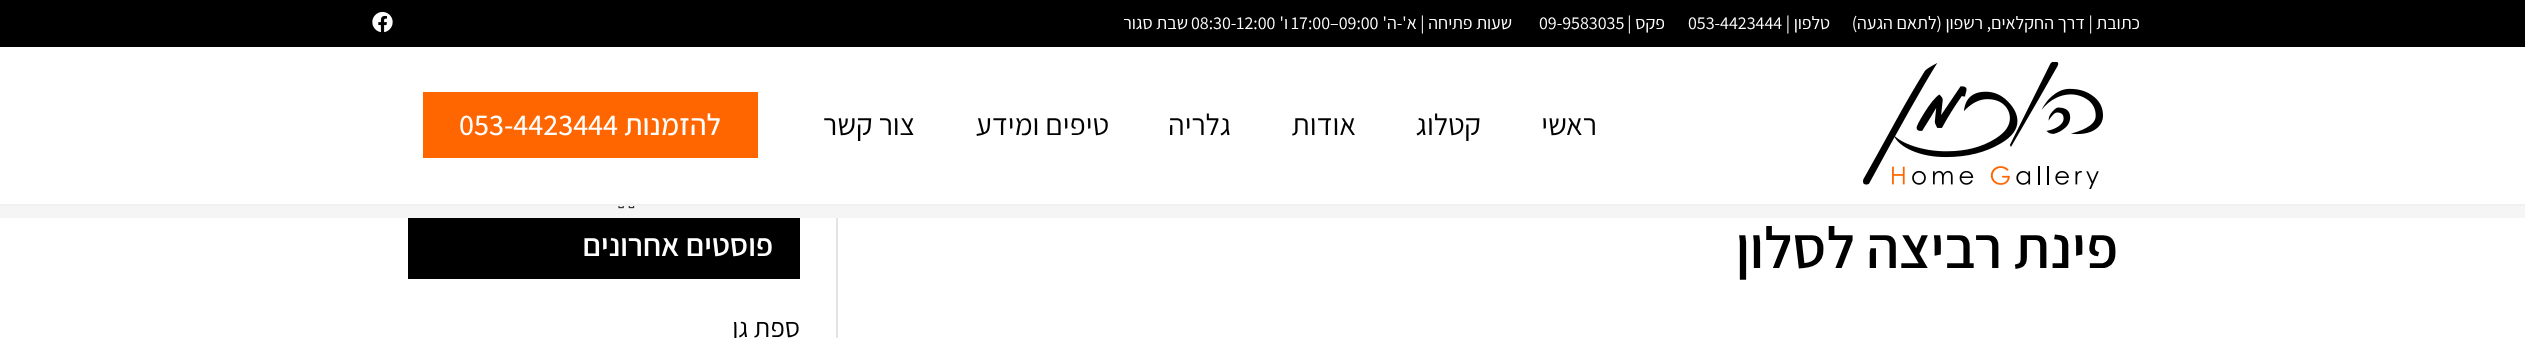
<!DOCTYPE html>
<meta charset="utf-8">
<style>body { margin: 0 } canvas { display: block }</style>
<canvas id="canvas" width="2525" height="338"></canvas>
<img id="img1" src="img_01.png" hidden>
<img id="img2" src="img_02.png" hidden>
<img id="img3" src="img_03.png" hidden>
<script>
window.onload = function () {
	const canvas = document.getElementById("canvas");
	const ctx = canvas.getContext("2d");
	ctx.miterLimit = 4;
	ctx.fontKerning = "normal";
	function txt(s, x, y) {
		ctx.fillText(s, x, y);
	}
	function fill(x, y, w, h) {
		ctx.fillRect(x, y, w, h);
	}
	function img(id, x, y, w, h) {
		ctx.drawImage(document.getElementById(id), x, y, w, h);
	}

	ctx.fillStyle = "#FFFFFF";
	fill(0, 0, 2525, 338);
	ctx.fillStyle = "#000000";
	fill(0, 0, 2525, 47);
	img("img1", 372, 11, 21, 22);
	ctx.fillStyle = "#F1F1F1";
	fill(0, 204, 2525, 2);
	img("img2", 1863, 62, 240, 127);
	ctx.fillStyle = "#FF6600";
	fill(423, 92, 335, 66);
	ctx.fillStyle = "#F5F5F5";
	fill(0, 206, 2525, 12);
	img("img3", 618, 206, 17, 3);
	ctx.fillStyle = "#E4E4E4";
	fill(836, 218, 2, 120);
	ctx.fillStyle = "#000000";
	fill(408, 218, 392, 61);
	ctx.direction = "rtl";
	ctx.font = "18px Assistant";
	ctx.fillStyle = "#FFFFFF";
	txt("כתובת | דרך החקלאים, רשפון (לתאם הגעה)", 2140, 29);
	txt("טלפון |", 1830, 29);
	ctx.direction = "ltr";
	txt("053-4423444", 1688, 29);
	ctx.direction = "rtl";
	txt("פקס |", 1665, 29);
	ctx.direction = "ltr";
	txt("09-9583035", 1539, 29);
	ctx.direction = "rtl";
	txt("שעות פתיחה | א'-ה'", 1512, 29);
	ctx.direction = "ltr";
	txt("17:00–09:00", 1291, 29);
	ctx.direction = "rtl";
	txt("ו'", 1288, 29);
	ctx.direction = "ltr";
	txt("08:30-12:00", 1191, 29);
	ctx.direction = "rtl";
	txt("שבת סגור", 1188, 29);
	ctx.font = "30px Assistant";
	ctx.fillStyle = "#000000";
	txt("ראשי", 1597, 135);
	txt("קטלוג", 1481, 135);
	txt("אודות", 1356, 135);
	txt("גלריה", 1231, 135);
	txt("טיפים ומידע", 1109, 135);
	txt("צור קשר", 915, 135);
	ctx.font = "500 30px Assistant";
	ctx.fillStyle = "#FFFFFF";
	txt("להזמנות", 721, 135);
	ctx.direction = "ltr";
	txt("053-4423444", 459, 135);
	ctx.direction = "rtl";
	ctx.font = "600 58.5px Assistant";
	ctx.fillStyle = "#000000";
	txt("פינת רביצה לסלון", 2118, 268);
	ctx.font = "600 31.5px Assistant";
	ctx.fillStyle = "#FFFFFF";
	txt("פוסטים אחרונים", 773, 256);
	ctx.font = "27px Assistant";
	ctx.fillStyle = "#000000";
	txt("ספת גן", 800, 337);
};
</script>
